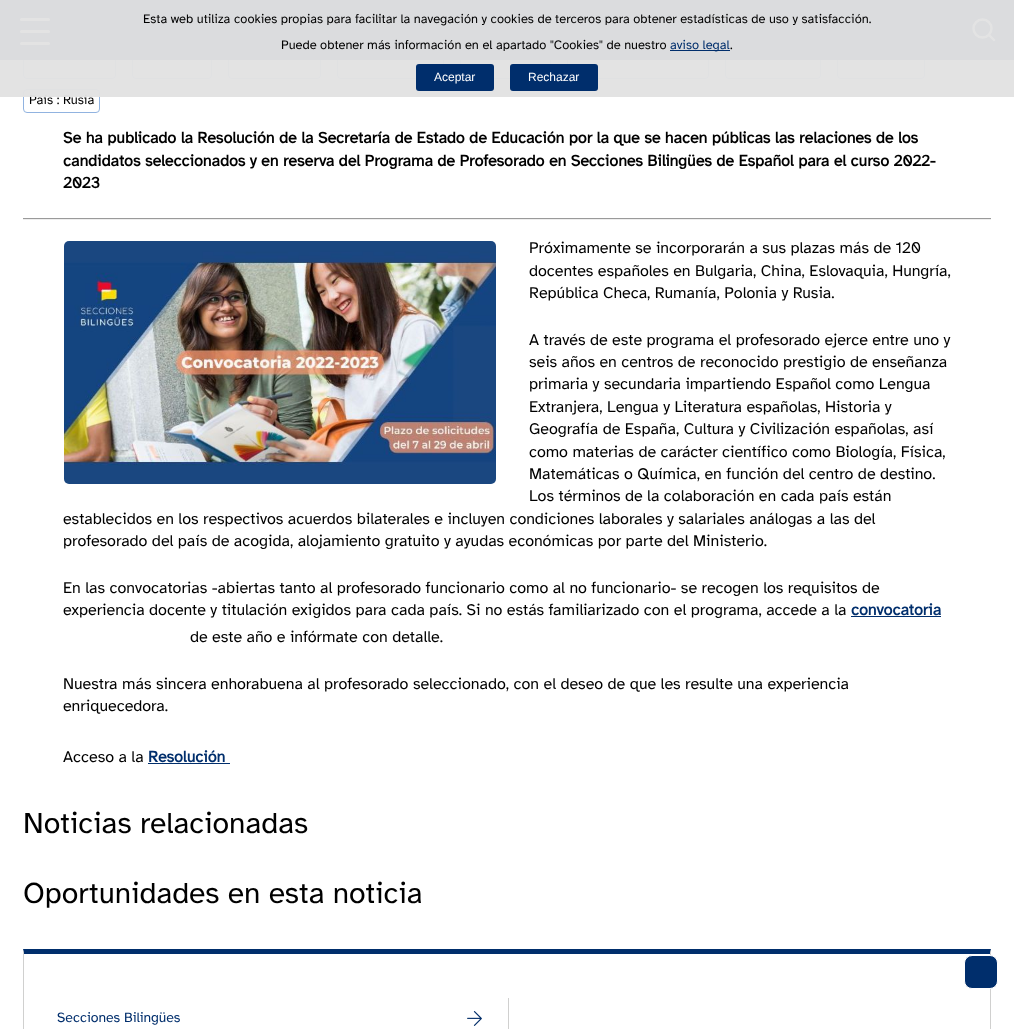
<!DOCTYPE html>
<meta charset="utf-8">
<style>body { margin: 0 } canvas { display: block }</style>
<canvas id="canvas" width="1014" height="1029"></canvas>
<img id="img1" src="img_01.png" hidden>
<img id="img2" src="img_02.png" hidden>
<script>
window.onload = function () {
	const canvas = document.getElementById("canvas");
	const ctx = canvas.getContext("2d");
	ctx.miterLimit = 4;
	ctx.fontKerning = "normal";
	function txt(s, x, y) {
		ctx.fillText(s, x, y);
	}
	function fill(x, y, w, h) {
		ctx.fillRect(x, y, w, h);
	}
	function round(x, y, w, h, r) {
		ctx.beginPath();
		ctx.roundRect(x, y, w, h, r);
		ctx.fill();
	}
	function img(id, x, y, w, h) {
		ctx.drawImage(document.getElementById(id), x, y, w, h);
	}

	ctx.fillStyle = "#FFFFFF";
	fill(0, 0, 1014, 1029);
	ctx.beginPath();
	ctx.roundRect(23.5, 54.5, 92, 24, 3.5);
	ctx.strokeStyle = "#91B3E0";
	ctx.stroke();
	ctx.beginPath();
	ctx.roundRect(132.5, 54.5, 79, 24, 3.5);
	ctx.stroke();
	ctx.beginPath();
	ctx.roundRect(228.5, 54.5, 92, 24, 3.5);
	ctx.stroke();
	ctx.beginPath();
	ctx.roundRect(337.5, 54.5, 106, 24, 3.5);
	ctx.stroke();
	ctx.strokeRect(460.5, 54.5, 90, 24);
	ctx.beginPath();
	ctx.roundRect(567.5, 54.5, 141, 24, 3.5);
	ctx.stroke();
	ctx.beginPath();
	ctx.roundRect(725.5, 54.5, 95, 24, 3.5);
	ctx.stroke();
	ctx.beginPath();
	ctx.roundRect(837.5, 54.5, 87, 24, 3.5);
	ctx.stroke();
	ctx.fillStyle = "#002E6C";
	fill(0, 0, 1014, 60);
	ctx.fillStyle = "#FFFFFF";
	round(20, 42, 30, 3, 1.5);
	round(20, 18, 30, 3, 1.5);
	round(20, 30, 30, 3, 1.5);
	ctx.beginPath();
	ctx.arc(982.5, 28.5, 9, 0, Math.PI * 2);
	ctx.strokeStyle = "#FFFFFF";
	ctx.lineWidth = 2.4;
	ctx.stroke();
	ctx.beginPath();
	ctx.moveTo(989, 35);
	ctx.lineTo(994, 40);
	ctx.lineCap = "round";
	ctx.stroke();
	ctx.beginPath();
	ctx.roundRect(23.5, 89.5, 76, 23, 3.5);
	ctx.strokeStyle = "#91B3E0";
	ctx.lineWidth = 1;
	ctx.stroke();
	ctx.fillStyle = "#9A9A9A";
	fill(23, 218, 968, 1);
	ctx.fillStyle = "#EEEEEE";
	fill(23, 219, 968, 1);
	ctx.fillStyle = "#002E6C";
	fill(851, 616, 90, 1);
	fill(148, 763, 82, 1);
	img("img1", 64, 241, 432, 243);
	ctx.beginPath();
	ctx.moveTo(23, 949);
	ctx.lineTo(24, 954);
	ctx.lineTo(990, 954);
	ctx.lineTo(991, 949);
	ctx.closePath();
	ctx.fill();
	ctx.fillStyle = "#D0D0CF";
	ctx.beginPath();
	ctx.moveTo(991, 949);
	ctx.lineTo(990, 954);
	ctx.lineTo(990, 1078);
	ctx.bezierCurveTo(990, 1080, 990, 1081, 989, 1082);
	ctx.bezierCurveTo(990, 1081, 991, 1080, 991, 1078);
	ctx.closePath();
	ctx.fill();
	ctx.beginPath();
	ctx.moveTo(24, 954);
	ctx.lineTo(23, 949);
	ctx.lineTo(23, 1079);
	ctx.lineTo(25, 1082);
	ctx.bezierCurveTo(24, 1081, 24, 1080, 24, 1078);
	ctx.closePath();
	ctx.fill();
	fill(508, 998, 1, 31);
	img("img2", 467, 1011, 15, 15);
	ctx.fillStyle = "#002E6C";
	ctx.beginPath();
	ctx.roundRect(964.5, 955.5, 33, 33, 7.5);
	ctx.fill();
	ctx.strokeStyle = "#FFFFFF";
	ctx.stroke();
	ctx.font = "13px Atkinson Hyperlegible";
	ctx.fillStyle = "#000000";
	txt("País : Rusia", 29, 104);
	ctx.fillStyle = "rgba(226, 226, 226, 0.97)";
	fill(0, 0, 1014, 97);
	ctx.fillStyle = "#002E6C";
	round(510, 64, 88, 27, 3);
	ctx.font = "12px Liberation Sans";
	ctx.fillStyle = "#FFFFFF";
	txt("Rechazar", 528, 81);
	ctx.fillStyle = "#002E6C";
	round(416, 64, 78, 27, 3);
	ctx.fillStyle = "#FFFFFF";
	txt("Aceptar", 434, 81);
	ctx.font = "12.8px Atkinson Hyperlegible";
	ctx.fillStyle = "#000000";
	txt(".", 730, 49);
	ctx.fillStyle = "#002E6C";
	fill(670, 50, 60, 1);
	txt("aviso legal", 670, 49);
	ctx.fillStyle = "#000000";
	txt("Puede obtener más información en el apartado \"Cookies\" de nuestro", 281, 49);
	txt("Esta web utiliza cookies propias para facilitar la navegación y cookies de terceros para obtener estadísticas de uso y satisfacción.", 143, 23);
	ctx.font = "bold 16px Atkinson Hyperlegible";
	txt("Se ha publicado la Resolución de la Secretaría de Estado de Educación por la que se hacen públicas las relaciones de los", 63, 143);
	txt("candidatos seleccionados y en reserva del Programa de Profesorado en Secciones Bilingües de Español para el curso 2022-", 63, 166);
	txt("2023", 63, 188);
	ctx.font = "16px Atkinson Hyperlegible";
	txt("Próximamente se incorporarán a sus plazas más de 120", 529, 253);
	txt("docentes españoles en Bulgaria, China, Eslovaquia, Hungría,", 529, 276);
	txt("República Checa, Rumanía, Polonia y Rusia.", 529, 298);
	txt("A través de este programa el profesorado ejerce entre uno y", 529, 345);
	txt("seis años en centros de reconocido prestigio de enseñanza", 529, 367);
	txt("primaria y secundaria impartiendo Español como Lengua", 529, 389);
	txt("Extranjera, Lengua y Literatura españolas, Historia y", 529, 412);
	txt("Geografía de España, Cultura y Civilización españolas, así", 529, 434);
	txt("como materias de carácter científico como Biología, Física,", 529, 457);
	txt("Matemáticas o Química, en función del centro de destino.", 529, 479);
	txt("Los términos de la colaboración en cada país están", 529, 501);
	txt("establecidos en los respectivos acuerdos bilaterales e incluyen condiciones laborales y salariales análogas a las del", 63, 524);
	txt("profesorado del país de acogida, alojamiento gratuito y ayudas económicas por parte del Ministerio.", 63, 546);
	txt("En las convocatorias -abiertas tanto al profesorado funcionario como al no funcionario- se recogen los requisitos de", 63, 593);
	txt("experiencia docente y titulación exigidos para cada país. Si no estás familiarizado con el programa, accede a la", 63, 615);
	ctx.font = "bold 16px Atkinson Hyperlegible";
	ctx.fillStyle = "#002E6C";
	txt("convocatoria", 851, 615);
	ctx.font = "16px Atkinson Hyperlegible";
	ctx.fillStyle = "#000000";
	txt("de este año e infórmate con detalle.", 190, 642);
	txt("Nuestra más sincera enhorabuena al profesorado seleccionado, con el deseo de que les resulte una experiencia", 63, 689);
	txt("enriquecedora.", 63, 711);
	txt("Acceso a la", 63, 762);
	ctx.font = "bold 16px Atkinson Hyperlegible";
	ctx.fillStyle = "#002E6C";
	txt("Resolución", 148, 762);
	ctx.font = "30px Atkinson Hyperlegible";
	ctx.fillStyle = "#000000";
	txt("Noticias relacionadas", 23, 833);
	txt("Oportunidades en esta noticia", 23, 903);
	ctx.font = "14px Atkinson Hyperlegible";
	ctx.fillStyle = "#002E6C";
	txt("Secciones Bilingües", 57, 1022);
};
</script>
